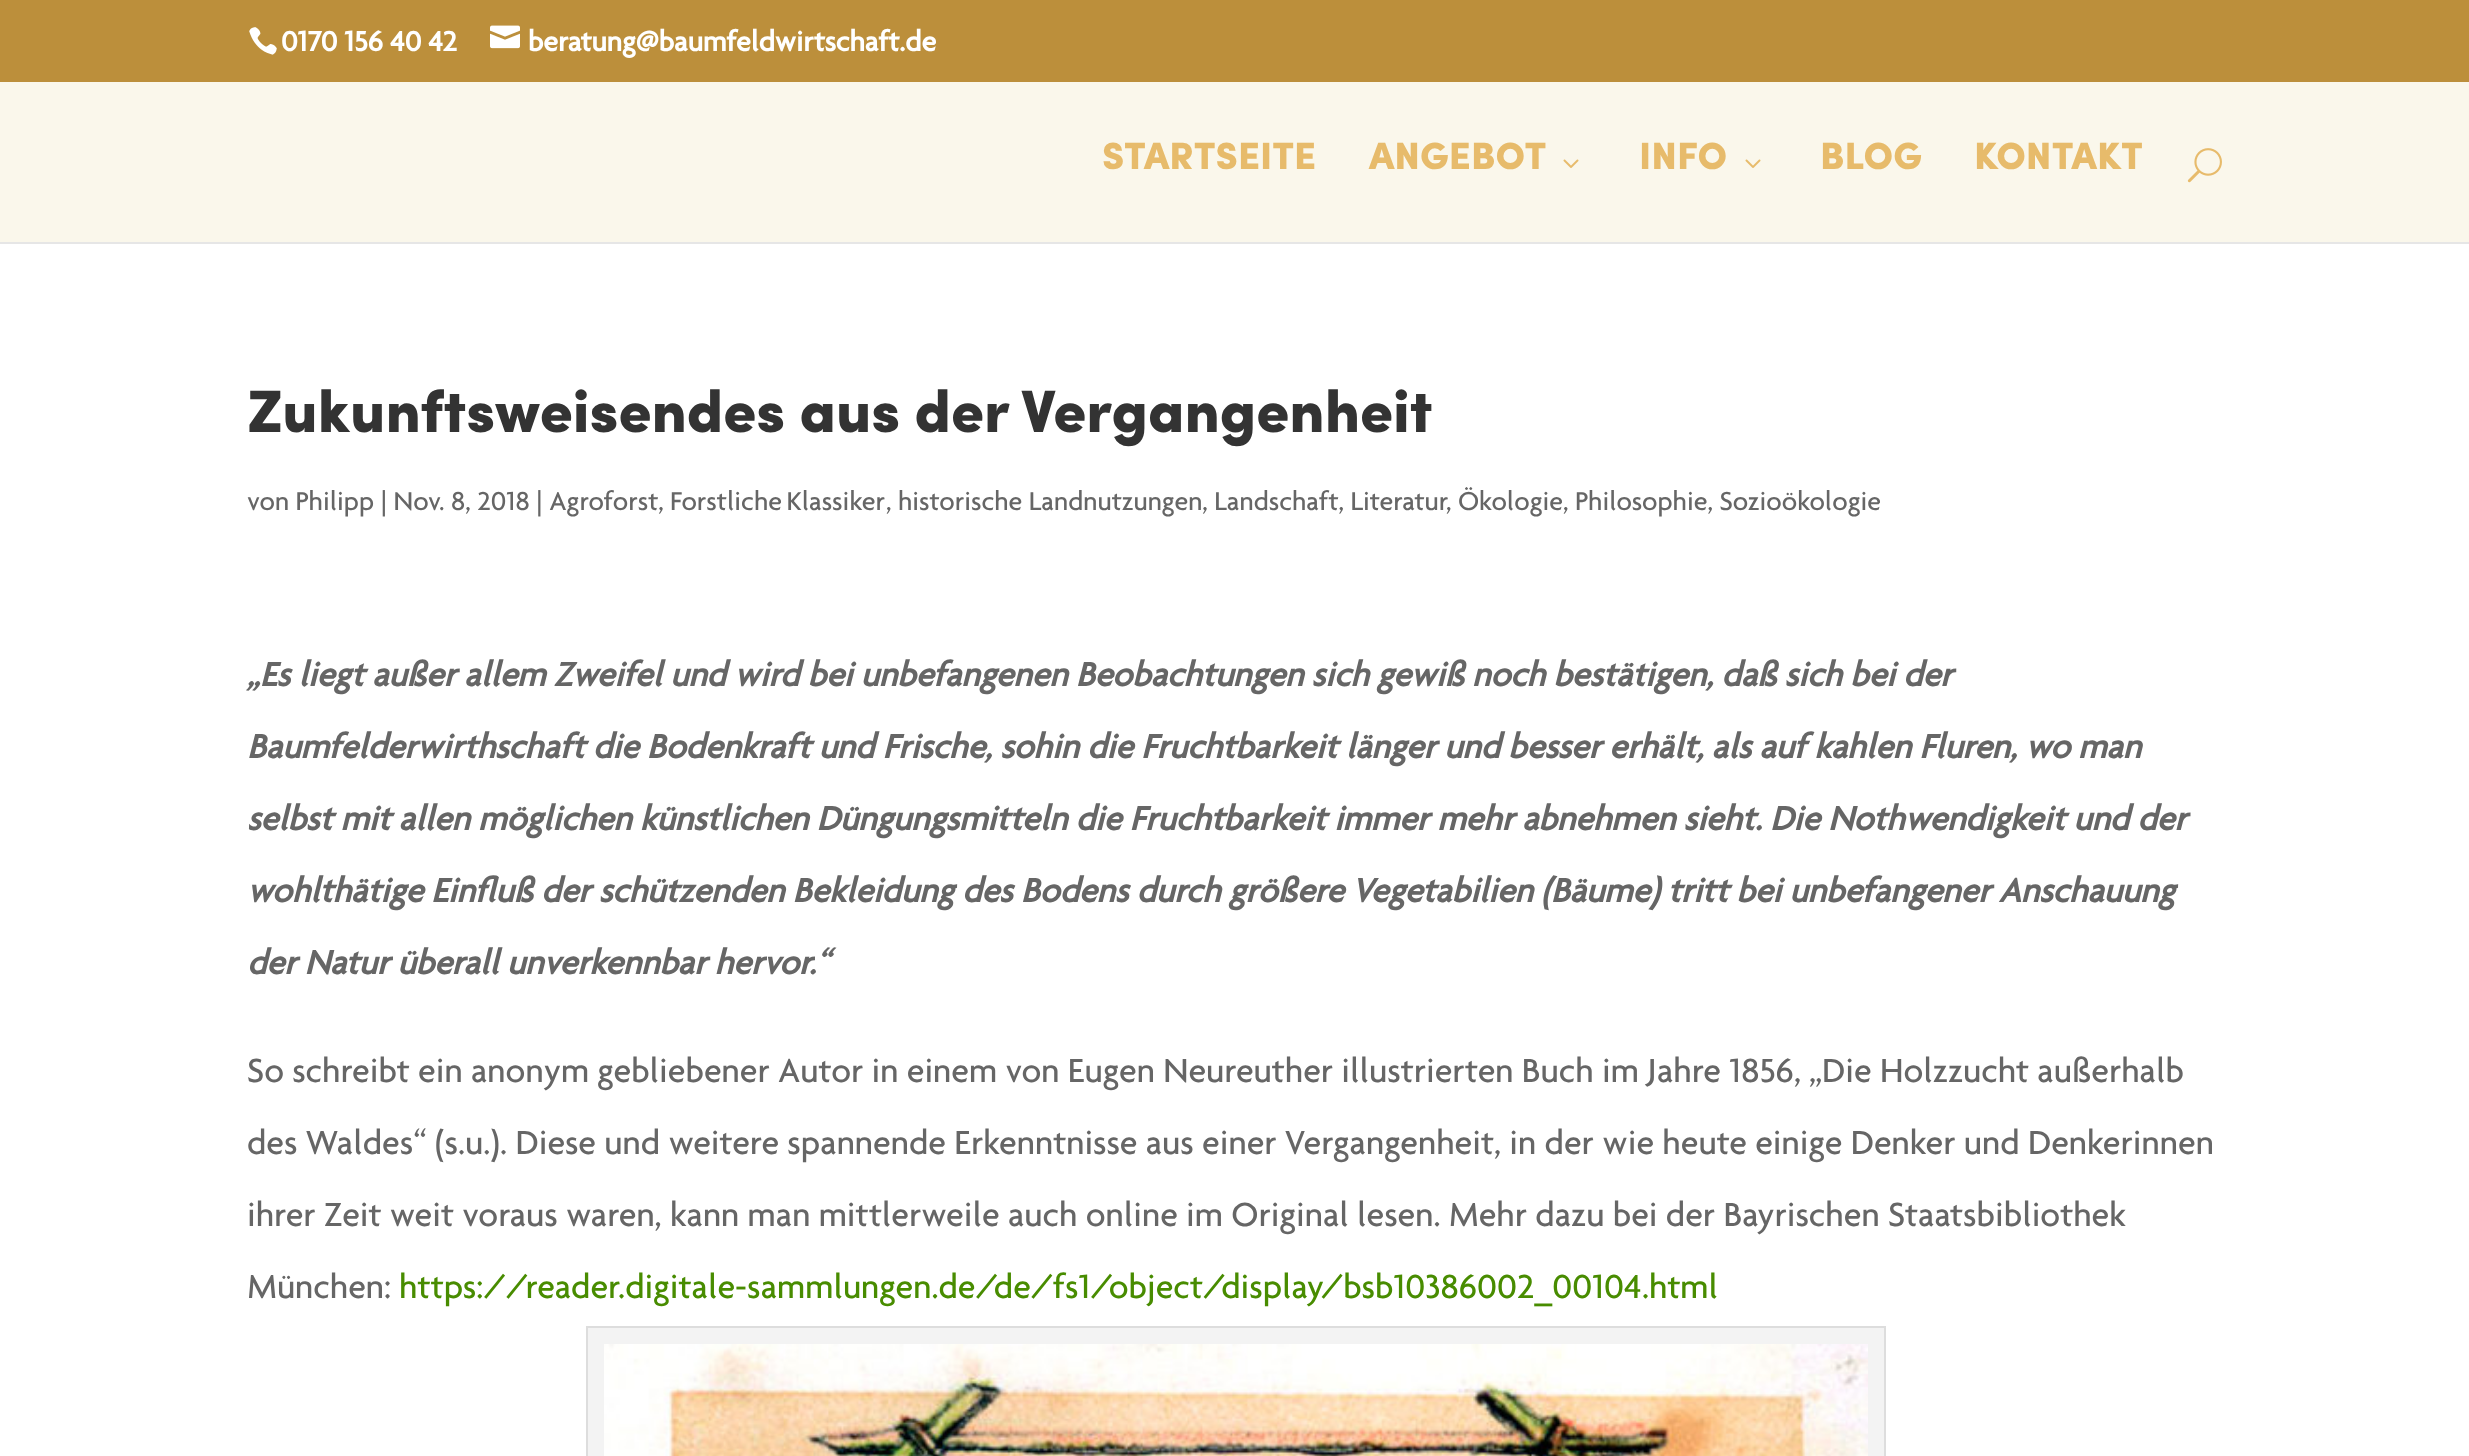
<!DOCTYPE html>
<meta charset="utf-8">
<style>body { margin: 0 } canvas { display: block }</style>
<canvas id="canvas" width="2469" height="1456"></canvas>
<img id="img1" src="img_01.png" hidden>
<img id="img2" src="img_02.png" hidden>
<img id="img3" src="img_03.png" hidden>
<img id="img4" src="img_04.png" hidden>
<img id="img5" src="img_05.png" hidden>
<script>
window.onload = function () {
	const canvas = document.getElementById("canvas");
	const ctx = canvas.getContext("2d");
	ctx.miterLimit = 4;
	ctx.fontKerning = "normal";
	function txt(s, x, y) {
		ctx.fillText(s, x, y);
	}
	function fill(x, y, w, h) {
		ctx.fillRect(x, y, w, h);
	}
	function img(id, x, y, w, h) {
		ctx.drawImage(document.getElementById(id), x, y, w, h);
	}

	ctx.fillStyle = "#FFFFFF";
	fill(0, 0, 2469, 1456);
	ctx.fillStyle = "#BC8F3B";
	fill(0, 0, 2469, 82);
	img("img1", 249, 27, 28, 28);
	img("img2", 490, 25, 30, 24);
	ctx.fillStyle = "#E6E6E6";
	fill(0, 242, 2469, 2);
	ctx.fillStyle = "#FAF7EB";
	fill(0, 82, 2469, 160);
	img("img3", 1563, 159, 16, 9);
	img("img3", 1745, 159, 16, 9);
	img("img4", 2187, 148, 35, 35);
	ctx.fillStyle = "#F3F3F3";
	ctx.beginPath();
	ctx.rect(587, 1327, 1298, 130);
	ctx.fill();
	ctx.strokeStyle = "#DDDDDD";
	ctx.lineWidth = 2;
	ctx.stroke();
	img("img5", 604, 1344, 1264, 112);
	ctx.font = "bold 30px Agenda";
	ctx.fillStyle = "#FFFFFF";
	txt("0170 156 40 42", 281, 51);
	txt("beratung@baumfeldwirtschaft.de", 528, 51);
	ctx.font = "900 38px Sofia";
	ctx.fillStyle = "#E7BB6B";
	txt("STARTSEITE", 1102, 169);
	txt("ANGEBOT", 1369, 169);
	txt("INFO", 1639, 169);
	txt("BLOG", 1820, 169);
	txt("KONTAKT", 1974, 169);
	ctx.font = "900 60px Sofia";
	ctx.fillStyle = "#333333";
	txt("Zukunftsweisendes aus der Vergangenheit", 247, 432);
	ctx.font = "500 28px Agenda";
	ctx.fillStyle = "#666666";
	txt("von Philipp | Nov. 8, 2018 | Agroforst,", 247, 510);
	ctx.wordSpacing = "-2px";
	txt("Forstliche Klassiker", 670, 510);
	ctx.wordSpacing = "0px";
	txt(", historische Landnutzungen, Landschaft, Literatur", 886, 510);
	txt(", Ökologie, Philosophie, Sozioökologie", 1446, 510);
	ctx.font = "italic bold 36px Agenda";
	txt("„Es liegt außer allem Zweifel und wird bei unbefangenen Beobachtungen sich gewiß noch bestätigen, daß sich bei der", 247, 686);
	txt("Baumfelderwirthschaft die Bodenkraft und Frische, sohin die Fruchtbarkeit länger und besser erhält, als auf kahlen Fluren, wo man", 247, 758);
	txt("selbst mit allen möglichen künstlichen Düngungsmitteln die Fruchtbarkeit immer mehr abnehmen sieht. Die Nothwendigkeit und der", 247, 830);
	txt("wohlthätige Einfluß der schützenden Bekleidung des Bodens durch größere Vegetabilien (Bäume) tritt bei unbefangener Anschauung", 247, 902);
	txt("der Natur überall unverkennbar hervor.“", 247, 974);
	ctx.font = "500 36px Agenda";
	txt("So schreibt ein anonym gebliebener Autor in einem von Eugen Neureuther illustrierten Buch im Jahre 1856, „Die Holzzucht außerhalb", 247, 1082);
	txt("des Waldes“ (s.u.). Diese und weitere spannende Erkenntnisse aus einer Vergangenheit, in der wie heute einige Denker und Denkerinnen", 247, 1154);
	txt("ihrer Zeit weit voraus waren, kann man mittlerweile auch online im Original lesen. Mehr dazu bei der Bayrischen Staatsbibliothek", 247, 1226);
	txt("München:", 247, 1298);
	ctx.fillStyle = "#488C00";
	txt("https://reader.digitale-sammlungen.de/de/fs1/object/display/bsb10386002_00104.html", 399, 1298);
};
</script>
